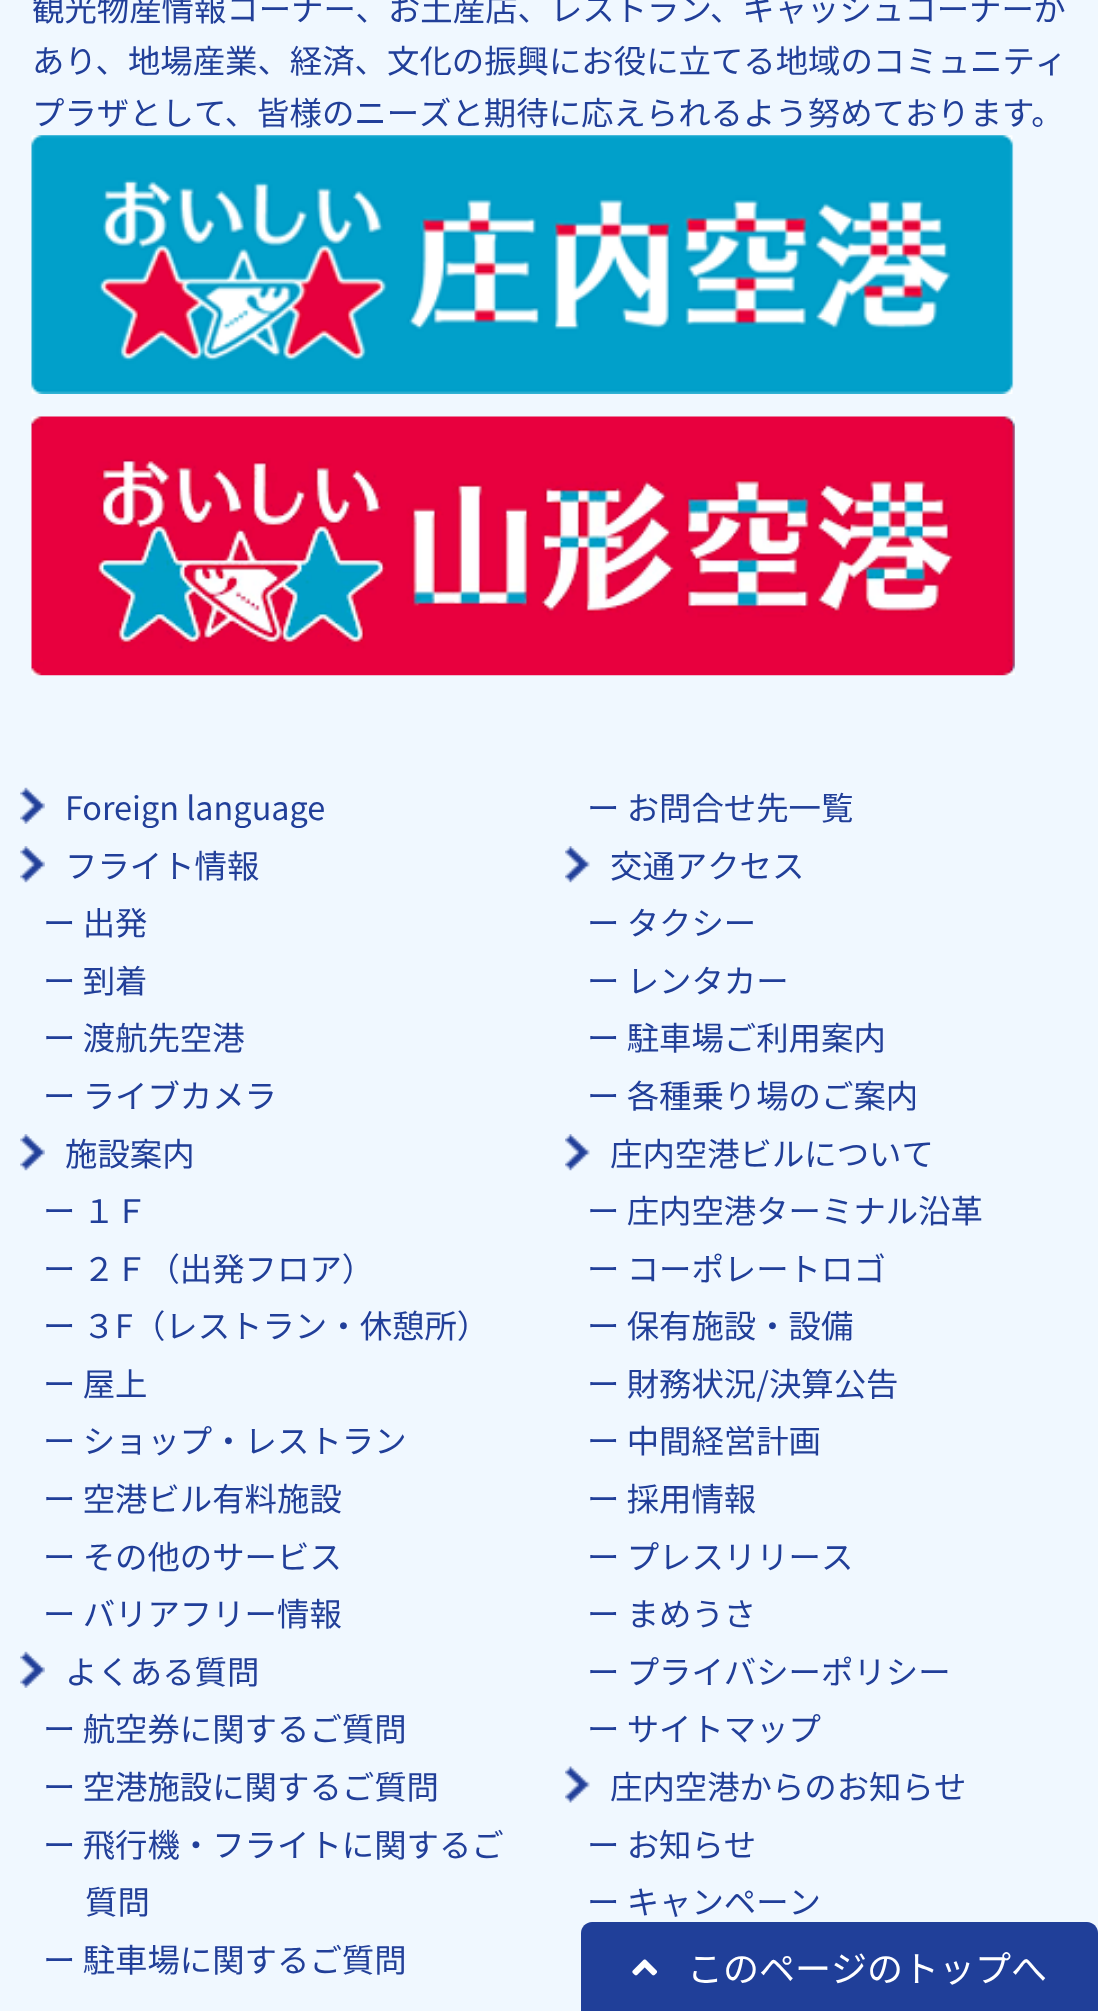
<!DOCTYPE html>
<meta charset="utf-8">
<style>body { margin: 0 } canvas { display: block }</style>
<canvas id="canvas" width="1098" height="2011"></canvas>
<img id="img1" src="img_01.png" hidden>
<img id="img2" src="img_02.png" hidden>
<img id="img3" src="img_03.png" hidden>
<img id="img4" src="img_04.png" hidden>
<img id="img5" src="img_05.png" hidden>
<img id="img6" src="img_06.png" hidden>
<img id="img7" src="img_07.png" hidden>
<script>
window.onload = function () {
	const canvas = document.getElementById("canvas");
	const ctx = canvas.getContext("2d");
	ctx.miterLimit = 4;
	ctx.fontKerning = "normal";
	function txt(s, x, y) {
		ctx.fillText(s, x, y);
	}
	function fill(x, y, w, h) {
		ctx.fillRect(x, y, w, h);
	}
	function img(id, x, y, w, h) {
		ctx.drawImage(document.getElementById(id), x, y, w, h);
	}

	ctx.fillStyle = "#F0F8FF";
	fill(0, 0, 1098, 2011);
	img("img1", 31, 135, 983, 259);
	img("img2", 31, 416, 984, 260);
	img("img3", 20, 1651, 25, 37);
	img("img3", 20, 787, 25, 37);
	img("img4", 20, 846, 25, 37);
	img("img5", 565, 846, 25, 37);
	img("img4", 20, 1134, 25, 37);
	img("img5", 565, 1134, 25, 37);
	img("img6", 565, 1766, 25, 37);
	ctx.fillStyle = "#203F99";
	ctx.beginPath();
	ctx.moveTo(592, 1922);
	ctx.lineTo(1087, 1922);
	ctx.bezierCurveTo(1093, 1922, 1098, 1927, 1098, 1933);
	ctx.lineTo(1098, 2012);
	ctx.lineTo(581, 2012);
	ctx.lineTo(581, 1933);
	ctx.bezierCurveTo(581, 1927, 586, 1922, 592, 1922);
	ctx.closePath();
	ctx.fill();
	img("img7", 632, 1959, 26, 17);
	ctx.font = "100 32.4px Noto Sans JP";
	ctx.fillStyle = "#213F99";
	txt("観光物産情報コーナー、お土産店、レストラン、キャッシュコーナーが", 32, 21);
	txt("あり、地場産業、経済、文化の振興にお役に立てる地域のコミュニティ", 32, 73);
	txt("プラザとして、皆様のニーズと期待に応えられるよう努めております。", 32, 125);
	txt("ー お問合せ先一覧", 587, 820);
	txt("ー 航空券に関するご質問", 43, 1741);
	txt("ー 空港施設に関するご質問", 43, 1799);
	txt("ー 飛行機・フライトに関するご", 43, 1857);
	txt("質問", 85, 1914);
	txt("ー 駐車場に関するご質問", 43, 1972);
	txt("よくある質問", 65, 1684);
	txt("Foreign language", 65, 820);
	txt("フライト情報", 65, 878);
	txt("ー 出発", 43, 935);
	txt("ー 到着", 43, 993);
	txt("ー 渡航先空港", 43, 1050);
	txt("ー ライブカメラ", 43, 1108);
	txt("交通アクセス", 610, 878);
	txt("ー タクシー", 587, 935);
	txt("ー レンタカー", 587, 993);
	txt("ー 駐車場ご利用案内", 587, 1050);
	txt("ー 各種乗り場のご案内", 587, 1108);
	txt("施設案内", 65, 1166);
	txt("ー １Ｆ", 43, 1223);
	txt("ー ２Ｆ（出発フロア）", 43, 1281);
	txt("ー ３F（レストラン・休憩所）", 43, 1338);
	txt("ー 屋上", 43, 1396);
	txt("ー ショップ・レストラン", 43, 1453);
	txt("ー 空港ビル有料施設", 43, 1511);
	txt("ー その他のサービス", 43, 1569);
	txt("ー バリアフリー情報", 43, 1626);
	txt("庄内空港ビルについて", 610, 1166);
	txt("ー 庄内空港ターミナル沿革", 587, 1223);
	txt("ー コーポレートロゴ", 587, 1281);
	txt("ー 保有施設・設備", 587, 1338);
	txt("ー 財務状況/決算公告", 587, 1396);
	txt("ー 中間経営計画", 587, 1453);
	txt("ー 採用情報", 587, 1511);
	txt("ー プレスリリース", 587, 1569);
	txt("ー まめうさ", 587, 1626);
	txt("ー プライバシーポリシー", 587, 1684);
	txt("ー サイトマップ", 587, 1741);
	txt("庄内空港からのお知らせ", 610, 1799);
	txt("ー お知らせ", 587, 1857);
	txt("ー キャンペーン", 587, 1914);
	ctx.font = "100 36px Noto Sans JP";
	ctx.fillStyle = "#FFFFFF";
	txt("このページのトップへ", 687, 1982);
};
</script>
